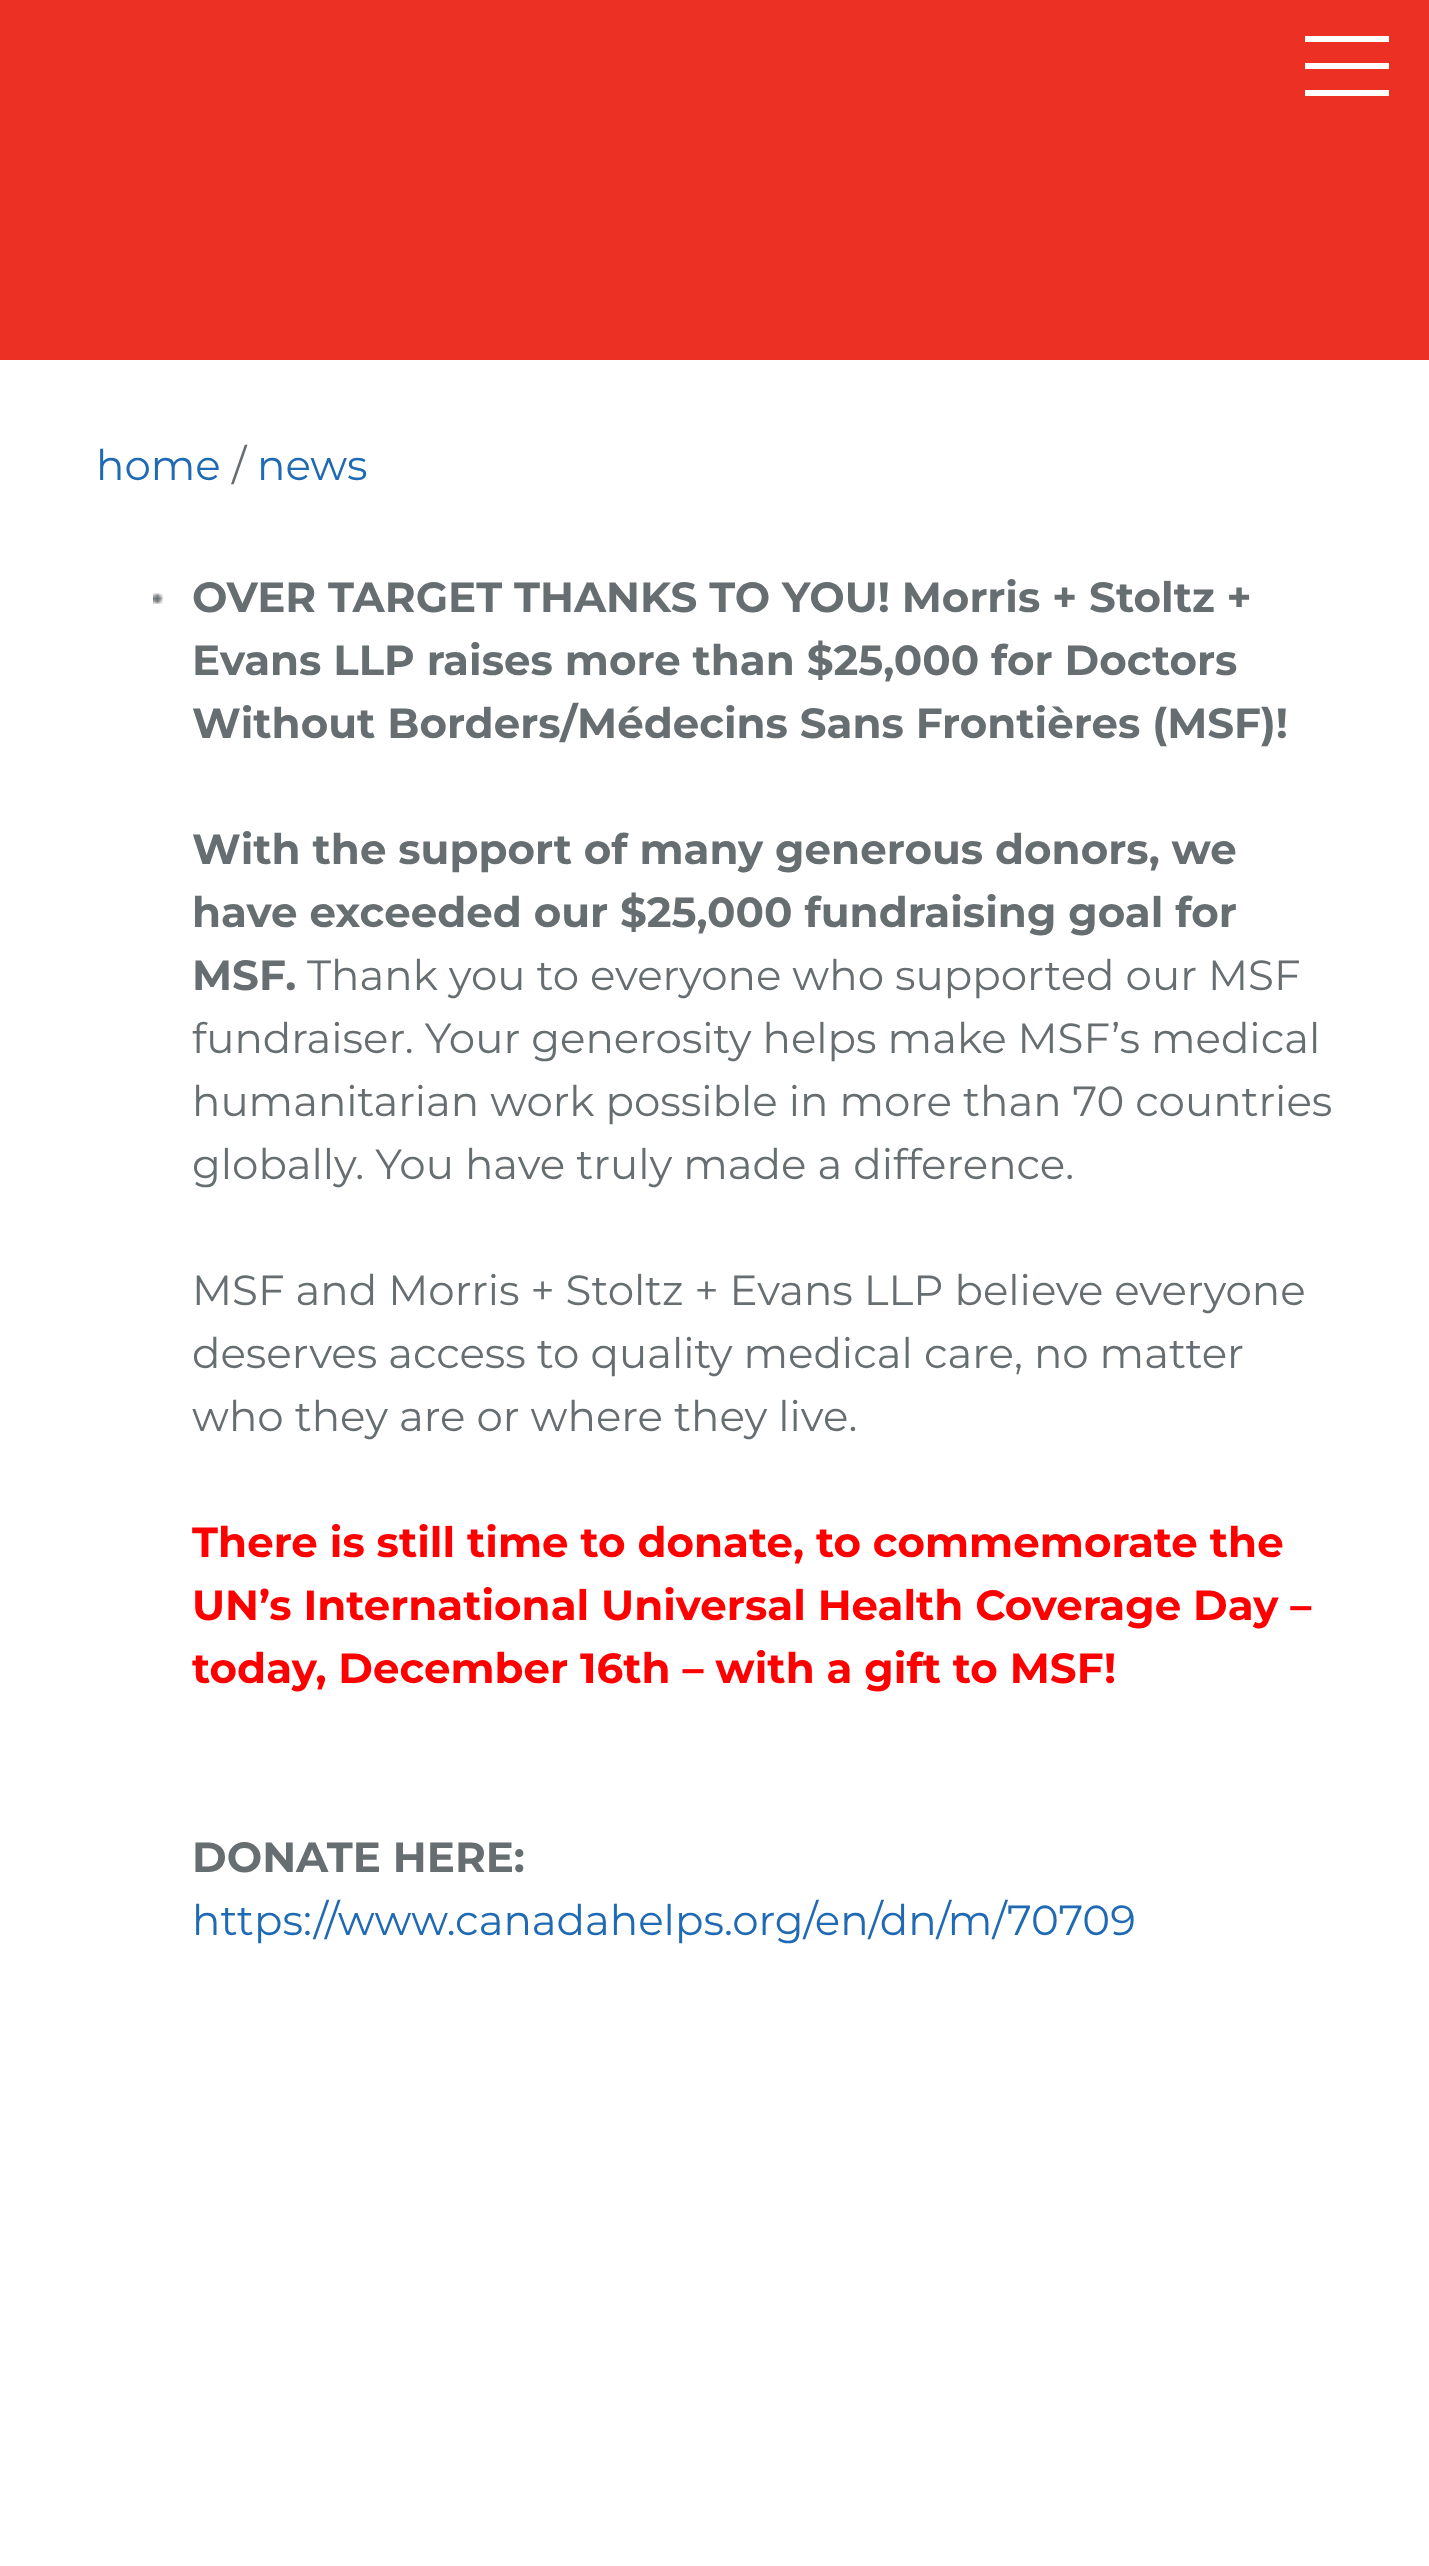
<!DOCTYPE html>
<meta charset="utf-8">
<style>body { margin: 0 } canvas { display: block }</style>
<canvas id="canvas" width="1429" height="2566"></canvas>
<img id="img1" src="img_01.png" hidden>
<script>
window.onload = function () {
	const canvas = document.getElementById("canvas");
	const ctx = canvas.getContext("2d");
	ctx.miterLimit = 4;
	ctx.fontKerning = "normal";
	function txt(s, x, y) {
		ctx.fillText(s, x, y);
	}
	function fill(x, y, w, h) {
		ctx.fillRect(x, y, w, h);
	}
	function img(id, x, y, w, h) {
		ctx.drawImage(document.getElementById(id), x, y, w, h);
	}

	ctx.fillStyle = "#FFFFFF";
	fill(0, 0, 1429, 2566);
	ctx.fillStyle = "#ED3024";
	fill(0, 0, 1429, 360);
	ctx.fillStyle = "#FFFFFF";
	fill(1305, 36, 84, 6);
	fill(1305, 63, 84, 6);
	fill(1305, 90, 84, 6);
	img("img1", 153, 593, 10, 11);
	ctx.font = "42px Montserrat";
	ctx.fillStyle = "#206AB3";
	txt("home", 96, 480);
	ctx.fillStyle = "#676E71";
	txt("/", 232, 480);
	ctx.fillStyle = "#206AB3";
	txt("news", 257, 480);
	ctx.font = "bold 42px Montserrat";
	ctx.fillStyle = "#676E71";
	txt("OVER TARGET THANKS TO YOU! Morris + Stoltz +", 192, 612);
	txt("Evans LLP raises more than $25,000 for Doctors", 192, 675);
	txt("Without Borders/Médecins Sans Frontières (MSF)!", 192, 738);
	txt("With the support of many generous donors, we", 192, 864);
	txt("have exceeded our $25,000 fundraising goal for", 192, 927);
	txt("MSF.", 192, 990);
	ctx.font = "42px Montserrat";
	txt("Thank you to everyone who supported our MSF", 307, 990);
	txt("fundraiser. Your generosity helps make MSF’s medical", 192, 1053);
	txt("humanitarian work possible in more than 70 countries", 192, 1116);
	txt("globally. You have truly made a difference.", 192, 1179);
	txt("MSF and Morris + Stoltz + Evans LLP believe everyone", 192, 1305);
	txt("deserves access to quality medical care, no matter", 192, 1368);
	txt("who they are or where they live.", 192, 1431);
	ctx.font = "bold 42px Montserrat";
	ctx.fillStyle = "#FF0000";
	txt("There is still time to donate, to commemorate the", 192, 1557);
	txt("UN’s International Universal Health Coverage Day –", 192, 1620);
	txt("today, December 16th – with a gift to MSF!", 192, 1683);
	ctx.fillStyle = "#676E71";
	txt("DONATE HERE:", 192, 1872);
	ctx.font = "42px Montserrat";
	ctx.fillStyle = "#206AB3";
	txt("https://www.canadahelps.org/en/dn/m/70709", 192, 1935);
};
</script>
